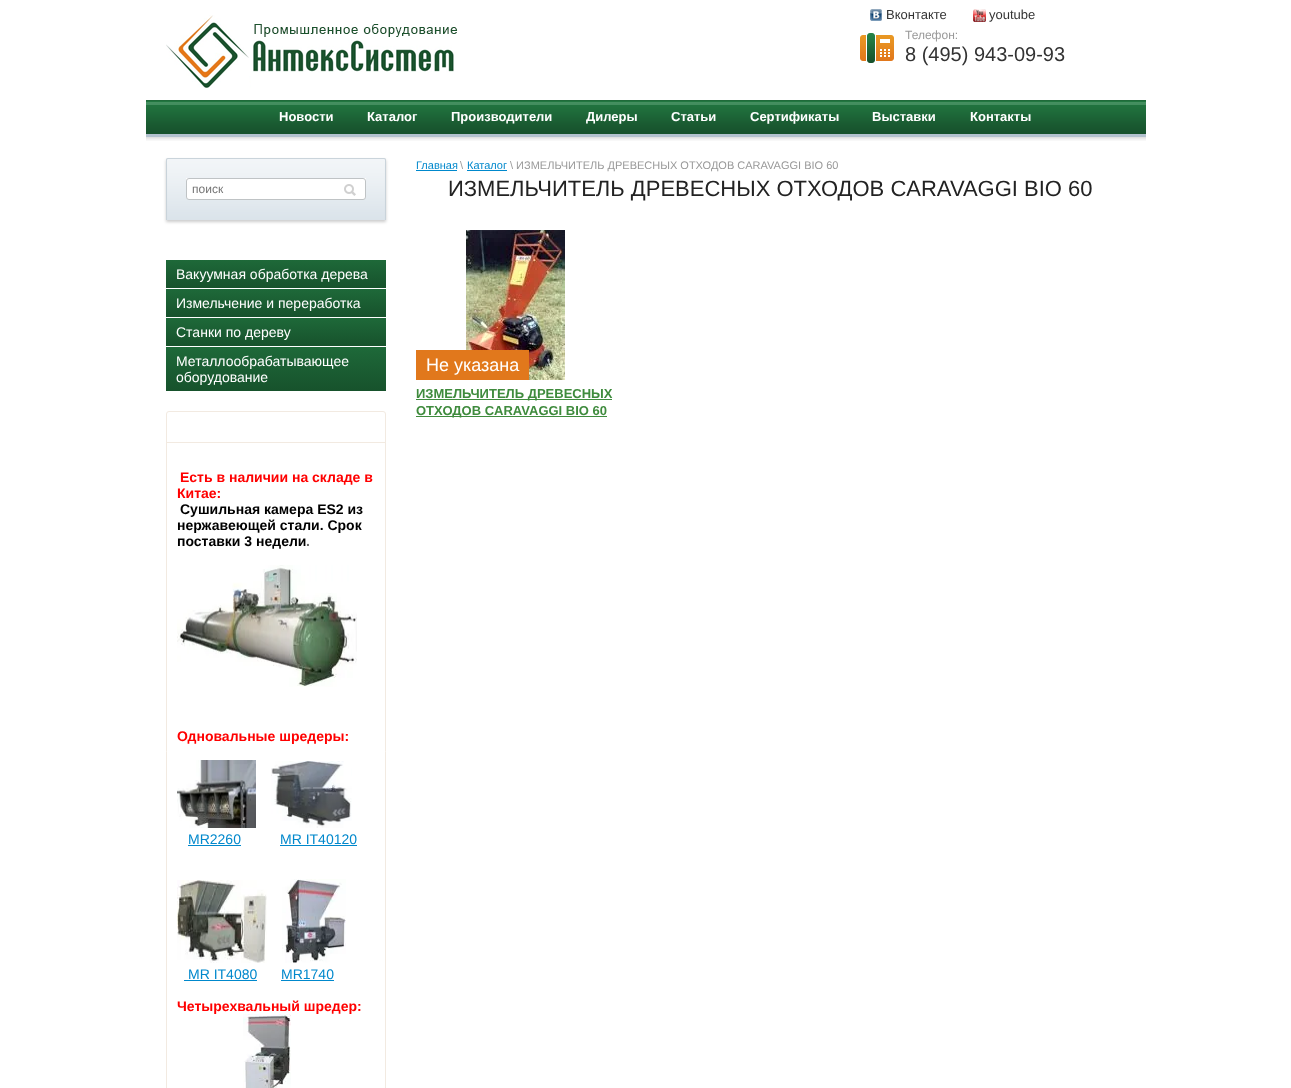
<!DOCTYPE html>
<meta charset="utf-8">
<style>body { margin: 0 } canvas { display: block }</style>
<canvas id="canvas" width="1291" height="1088"></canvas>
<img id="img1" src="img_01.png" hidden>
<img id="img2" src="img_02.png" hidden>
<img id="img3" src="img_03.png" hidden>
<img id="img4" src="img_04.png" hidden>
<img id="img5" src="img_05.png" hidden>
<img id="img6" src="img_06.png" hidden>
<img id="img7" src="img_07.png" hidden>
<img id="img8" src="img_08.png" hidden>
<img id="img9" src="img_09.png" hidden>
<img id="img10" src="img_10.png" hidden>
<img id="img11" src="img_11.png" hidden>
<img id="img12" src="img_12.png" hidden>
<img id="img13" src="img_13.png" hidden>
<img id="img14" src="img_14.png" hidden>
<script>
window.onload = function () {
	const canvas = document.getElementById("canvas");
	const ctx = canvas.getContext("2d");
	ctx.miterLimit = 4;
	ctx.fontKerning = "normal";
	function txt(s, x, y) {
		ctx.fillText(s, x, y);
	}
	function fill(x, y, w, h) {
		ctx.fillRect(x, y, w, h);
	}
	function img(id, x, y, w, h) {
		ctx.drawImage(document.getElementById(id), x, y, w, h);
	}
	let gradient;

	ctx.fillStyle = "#FFFFFF";
	fill(0, 0, 1291, 1088);
	img("img1", 870, 9, 12, 12);
	img("img2", 973, 9, 13, 13);
	img("img3", 166, 15, 292, 73);
	img("img4", 860, 33, 34, 30);
	img("img5", 146, 100, 1000, 41);
	ctx.fillStyle = "rgba(0, 0, 0, 0.2)";
	ctx.filter = "blur(1.5px)";
	ctx.beginPath();
	ctx.rect(166, 160, 220, 62);
	ctx.fill();
	ctx.filter = "none";
	img("img6", 166, 158, 220, 62);
	ctx.fillStyle = "#FDFDFD";
	fill(186, 178, 180, 20);
	ctx.fillStyle = "#FFFFFF";
	ctx.beginPath();
	ctx.roundRect(186.5, 178.5, 179, 21, 2.5);
	ctx.fill();
	ctx.strokeStyle = "#BFC3C5";
	ctx.stroke();
	img("img7", 344, 184, 12, 12);
	gradient = ctx.createLinearGradient(276, 260, 276, 288);
	gradient.addColorStop(0, "#1E6939");
	gradient.addColorStop(1, "#17522C");
	ctx.fillStyle = gradient;
	fill(166, 260, 220, 28);
	gradient = ctx.createLinearGradient(276, 289, 276, 317);
	gradient.addColorStop(0, "#1E6939");
	gradient.addColorStop(1, "#17522C");
	ctx.fillStyle = gradient;
	fill(166, 289, 220, 28);
	gradient = ctx.createLinearGradient(276, 318, 276, 346);
	gradient.addColorStop(0, "#1E6939");
	gradient.addColorStop(1, "#17522C");
	ctx.fillStyle = gradient;
	fill(166, 318, 220, 28);
	gradient = ctx.createLinearGradient(276, 347, 276, 391);
	gradient.addColorStop(0, "#1E6939");
	gradient.addColorStop(1, "#17522C");
	ctx.fillStyle = gradient;
	fill(166, 347, 220, 44);
	ctx.beginPath();
	ctx.roundRect(166.5, 411.5, 219, 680, 2.5);
	ctx.strokeStyle = "#F2EAE1";
	ctx.stroke();
	ctx.fillStyle = "#F2EAE1";
	fill(167, 442, 218, 1);
	img("img8", 177, 565, 180, 122);
	img("img9", 177, 760, 79, 68);
	img("img10", 271, 761, 81, 67);
	ctx.fillStyle = "#0088CC";
	fill(188, 845, 53, 1);
	fill(280, 845, 77, 1);
	img("img11", 177, 880, 90, 83);
	img("img12", 282, 879, 64, 84);
	fill(184, 980, 73, 1);
	fill(281, 980, 53, 1);
	img("img13", 243, 1014, 48, 74);
	fill(416, 170, 41, 1);
	fill(467, 170, 40, 1);
	img("img14", 466, 230, 99, 150);
	ctx.fillStyle = "#E1781C";
	fill(416, 350, 113, 30);
	ctx.fillStyle = "#3F8B3D";
	fill(416, 399, 196, 1);
	fill(416, 416, 191, 1);
	ctx.font = "13px Liberation Sans";
	ctx.fillStyle = "#333333";
	txt("Вконтакте", 886, 19);
	txt("youtube", 989, 19);
	ctx.font = "12px Liberation Sans";
	ctx.fillStyle = "#999999";
	txt("Телефон:", 905, 39);
	ctx.font = "20px Liberation Sans";
	ctx.fillStyle = "#333333";
	txt("8 (495) 943-09-93", 905, 61);
	ctx.font = "bold 13px Liberation Sans";
	ctx.fillStyle = "#FFFFFF";
	txt("Новости", 279, 121);
	txt("Каталог", 367, 121);
	txt("Производители", 451, 121);
	txt("Дилеры", 586, 121);
	txt("Статьи", 671, 121);
	txt("Сертификаты", 750, 121);
	txt("Выставки", 872, 121);
	txt("Контакты", 970, 121);
	ctx.font = "12px Liberation Sans";
	ctx.fillStyle = "#757575";
	txt("поиск", 192, 193);
	ctx.font = "14px Liberation Sans";
	ctx.fillStyle = "#FFFFFF";
	txt("Вакуумная обработка дерева", 176, 279);
	txt("Измельчение и переработка", 176, 308);
	txt("Станки по дереву", 176, 337);
	txt("Металлообрабатывающее", 176, 366);
	txt("оборудование", 176, 382);
	ctx.font = "bold 14px Liberation Sans";
	ctx.fillStyle = "#FF0000";
	txt("Есть в наличии на складе в", 180, 482);
	txt("Китае:", 177, 498);
	ctx.fillStyle = "#000000";
	txt("Cушильная камера ES2 из", 180, 514);
	txt("нержавеющей стали. Срок", 177, 530);
	txt("поставки 3 недели", 177, 546);
	ctx.fillStyle = "#666666";
	txt(".", 306, 546);
	ctx.fillStyle = "#FF0000";
	txt("Одновальные шредеры:", 177, 741);
	ctx.font = "14px Liberation Sans";
	ctx.fillStyle = "#0088CC";
	txt("MR2260", 188, 844);
	txt("MR IT40120", 280, 844);
	txt("MR IT4080", 188, 979);
	txt("MR1740", 281, 979);
	ctx.font = "bold 14px Liberation Sans";
	ctx.fillStyle = "#FF0000";
	txt("Четырехвальный шредер:", 177, 1011);
	ctx.font = "11px Liberation Sans";
	ctx.fillStyle = "#0088CC";
	txt("Главная", 416, 169);
	ctx.fillStyle = "#999999";
	txt("\\", 460, 169);
	ctx.fillStyle = "#0088CC";
	txt("Каталог", 467, 169);
	ctx.fillStyle = "#999999";
	txt("\\ ИЗМЕЛЬЧИТЕЛЬ ДРЕВЕСНЫХ ОТХОДОВ CARAVAGGI BIO 60", 510, 169);
	ctx.font = "22px Liberation Sans";
	ctx.fillStyle = "#222222";
	txt("ИЗМЕЛЬЧИТЕЛЬ ДРЕВЕСНЫХ ОТХОДОВ CARAVAGGI BIO 60", 448, 196);
	ctx.font = "18px Liberation Sans";
	ctx.fillStyle = "#FFFFFF";
	txt("Не указана", 426, 371);
	ctx.font = "bold 13px Liberation Sans";
	ctx.fillStyle = "#3F8B3D";
	txt("ИЗМЕЛЬЧИТЕЛЬ ДРЕВЕСНЫХ", 416, 398);
	txt("ОТХОДОВ CARAVAGGI BIO 60", 416, 415);
};
</script>
